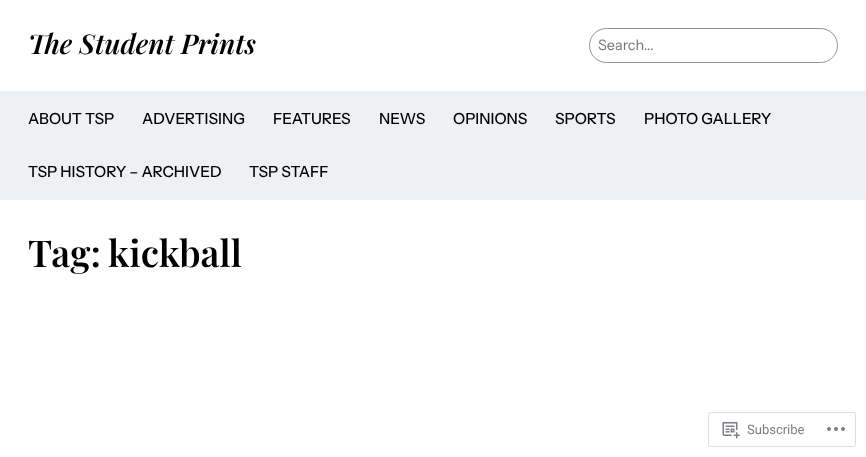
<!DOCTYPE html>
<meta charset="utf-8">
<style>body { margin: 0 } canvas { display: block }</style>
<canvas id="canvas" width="866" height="457"></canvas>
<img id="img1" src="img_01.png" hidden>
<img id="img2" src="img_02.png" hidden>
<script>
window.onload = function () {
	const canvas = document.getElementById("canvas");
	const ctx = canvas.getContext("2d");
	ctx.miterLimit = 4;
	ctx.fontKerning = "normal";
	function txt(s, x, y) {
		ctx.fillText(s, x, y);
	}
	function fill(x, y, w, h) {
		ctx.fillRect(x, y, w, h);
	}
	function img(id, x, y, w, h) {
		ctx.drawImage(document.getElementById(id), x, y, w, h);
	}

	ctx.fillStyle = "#FFFFFF";
	fill(0, 0, 866, 457);
	ctx.beginPath();
	ctx.roundRect(589.5, 28.5, 248, 34, 17);
	ctx.strokeStyle = "#949494";
	ctx.stroke();
	ctx.fillStyle = "#EDF1F4";
	fill(0, 91, 866, 109);
	ctx.beginPath();
	ctx.roundRect(708.5, 412.5, 147, 34, 2.5);
	ctx.strokeStyle = "#DDDDDF";
	ctx.stroke();
	img("img1", 722, 422, 18, 17);
	img("img2", 827, 427, 18, 4);
	ctx.font = "italic 600 27.25px Playfair Display";
	ctx.fillStyle = "#000000";
	txt("The Student Prints", 28, 54);
	ctx.font = "14.5px Instrument Sans";
	ctx.fillStyle = "#757575";
	txt("Search...", 598, 50);
	ctx.font = "500 15.4px Instrument Sans";
	ctx.fillStyle = "#000000";
	txt("ABOUT TSP", 28, 124);
	txt("ADVERTISING", 142, 124);
	txt("FEATURES", 273, 124);
	txt("NEWS", 379, 124);
	txt("OPINIONS", 453, 124);
	txt("SPORTS", 555, 124);
	txt("PHOTO GALLERY", 644, 124);
	txt("TSP HISTORY – ARCHIVED", 28, 177);
	txt("TSP STAFF", 249, 177);
	ctx.font = "600 37px Playfair Display";
	txt("Tag:", 28, 267);
	txt("kickball", 108, 267);
	ctx.font = "13px Roboto";
	ctx.fillStyle = "#7B7F85";
	txt("Subscribe", 747, 434);
};
</script>
